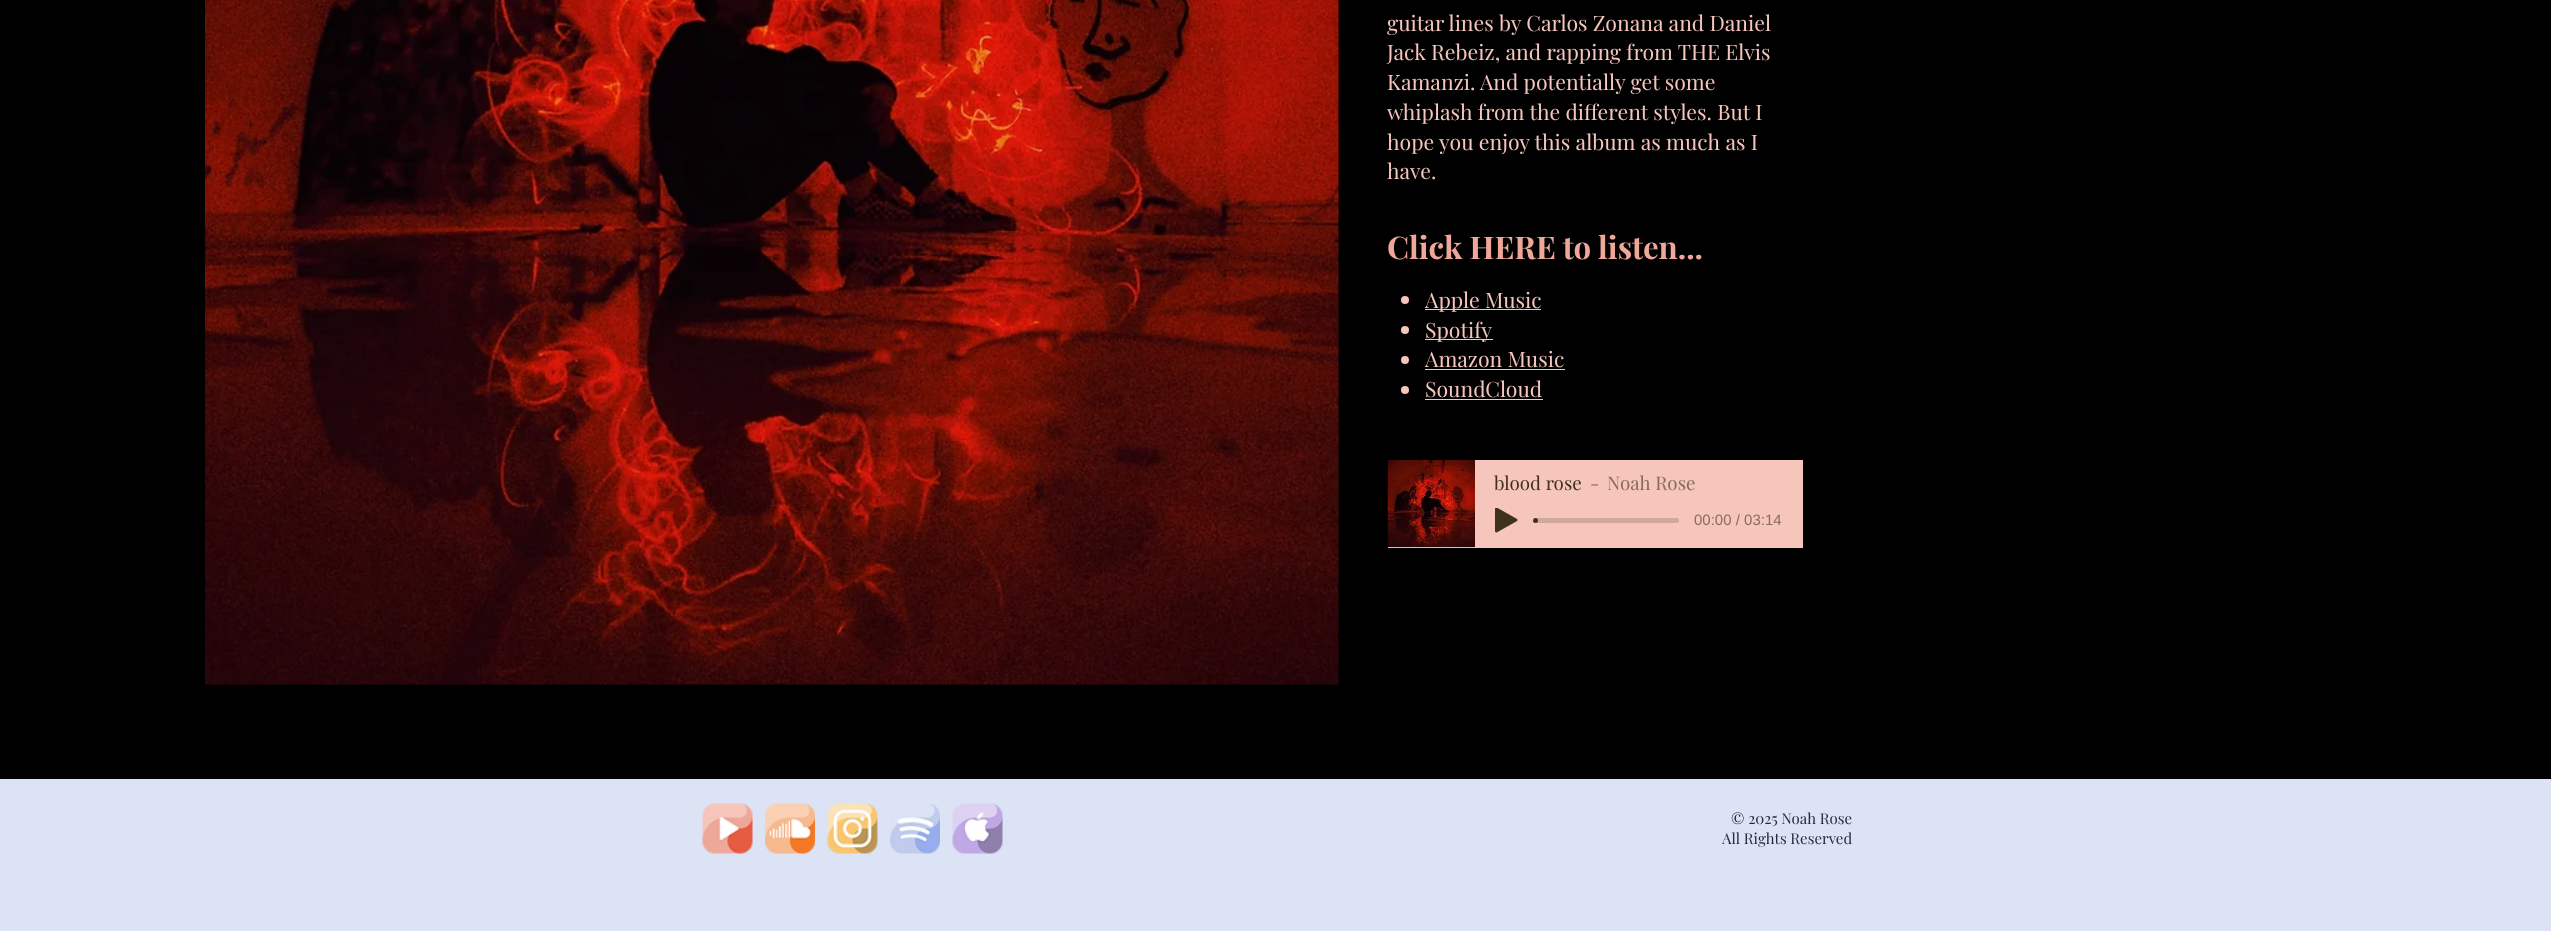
<!DOCTYPE html>
<meta charset="utf-8">
<style>body { margin: 0 } canvas { display: block }</style>
<canvas id="canvas" width="2551" height="931"></canvas>
<img id="img1" src="img_01.png" hidden>
<img id="img2" src="img_02.png" hidden>
<img id="img3" src="img_03.png" hidden>
<img id="img4" src="img_04.png" hidden>
<img id="img5" src="img_05.png" hidden>
<img id="img6" src="img_06.png" hidden>
<img id="img7" src="img_07.png" hidden>
<img id="img8" src="img_08.png" hidden>
<script>
window.onload = function () {
	const canvas = document.getElementById("canvas");
	const ctx = canvas.getContext("2d");
	ctx.miterLimit = 4;
	ctx.fontKerning = "normal";
	function txt(s, x, y) {
		ctx.fillText(s, x, y);
	}
	function fill(x, y, w, h) {
		ctx.fillRect(x, y, w, h);
	}
	function round(x, y, w, h, r) {
		ctx.beginPath();
		ctx.roundRect(x, y, w, h, r);
		ctx.fill();
	}
	function img(id, x, y, w, h) {
		ctx.drawImage(document.getElementById(id), x, y, w, h);
	}

	ctx.fillStyle = "#000000";
	fill(0, 0, 2551, 931);
	img("img1", 205, 0, 1134, 685);
	ctx.fillStyle = "#F6C5BC";
	ctx.beginPath();
	ctx.arc(1405, 300, 4, 0, Math.PI * 2);
	ctx.fill();
	fill(1425, 309, 116, 1);
	ctx.beginPath();
	ctx.arc(1405, 330, 4, 0, Math.PI * 2);
	ctx.fill();
	fill(1425, 339, 68, 1);
	ctx.beginPath();
	ctx.arc(1405, 360, 4, 0, Math.PI * 2);
	ctx.fill();
	fill(1425, 369, 140, 1);
	ctx.beginPath();
	ctx.arc(1405, 390, 4, 0, Math.PI * 2);
	ctx.fill();
	fill(1425, 399, 118, 1);
	fill(1388, 460, 415, 88);
	img("img2", 1387, 459, 88, 89);
	img("img3", 1495, 508, 23, 25);
	ctx.fillStyle = "#D1A89C";
	round(1535, 518, 144, 5, 2.5);
	ctx.fillStyle = "#3F321C";
	ctx.beginPath();
	ctx.arc(1535.5, 520.5, 2.5, 0, Math.PI * 2);
	ctx.fill();
	ctx.fillStyle = "#DCE3F5";
	fill(0, 779, 2551, 152);
	img("img4", 702, 803, 51, 51);
	img("img5", 765, 803, 50, 51);
	img("img6", 827, 803, 51, 51);
	img("img7", 890, 803, 50, 51);
	img("img8", 952, 803, 51, 51);
	ctx.font = "21.25px Playfair Display";
	ctx.fillStyle = "#F6C5BC";
	txt("guitar lines by Carlos Zonana and Daniel", 1387, 31);
	txt("Jack Rebeiz, and rapping from THE Elvis", 1387, 60);
	txt("Kamanzi. And potentially get some", 1387, 90);
	txt("whiplash from the different styles. But I", 1387, 120);
	txt("hope you enjoy this album as much as I", 1387, 150);
	txt("have.", 1387, 179);
	ctx.font = "bold 31.25px Playfair Display";
	ctx.fillStyle = "#EEA799";
	txt("Click HERE to listen...", 1387, 259);
	ctx.font = "21.25px Playfair Display";
	ctx.fillStyle = "#F6C5BC";
	txt("Apple Music", 1425, 308);
	txt("Spotify", 1425, 338);
	txt("Amazon Music", 1425, 367);
	txt("SoundCloud", 1425, 397);
	ctx.font = "18.75px Playfair Display";
	ctx.fillStyle = "#3F321C";
	txt("blood rose", 1494, 490);
	ctx.fillStyle = "#886D5C";
	txt("-", 1590, 490);
	txt("Noah Rose", 1607, 490);
	ctx.font = "15px Liberation Sans";
	txt("00:00 / 03:14", 1694, 525);
	ctx.font = "15px Playfair Display";
	ctx.fillStyle = "#262B3B";
	txt("© 2025 Noah Rose", 1731, 824);
	txt("All Rights Reserved", 1722, 844);
};
</script>
